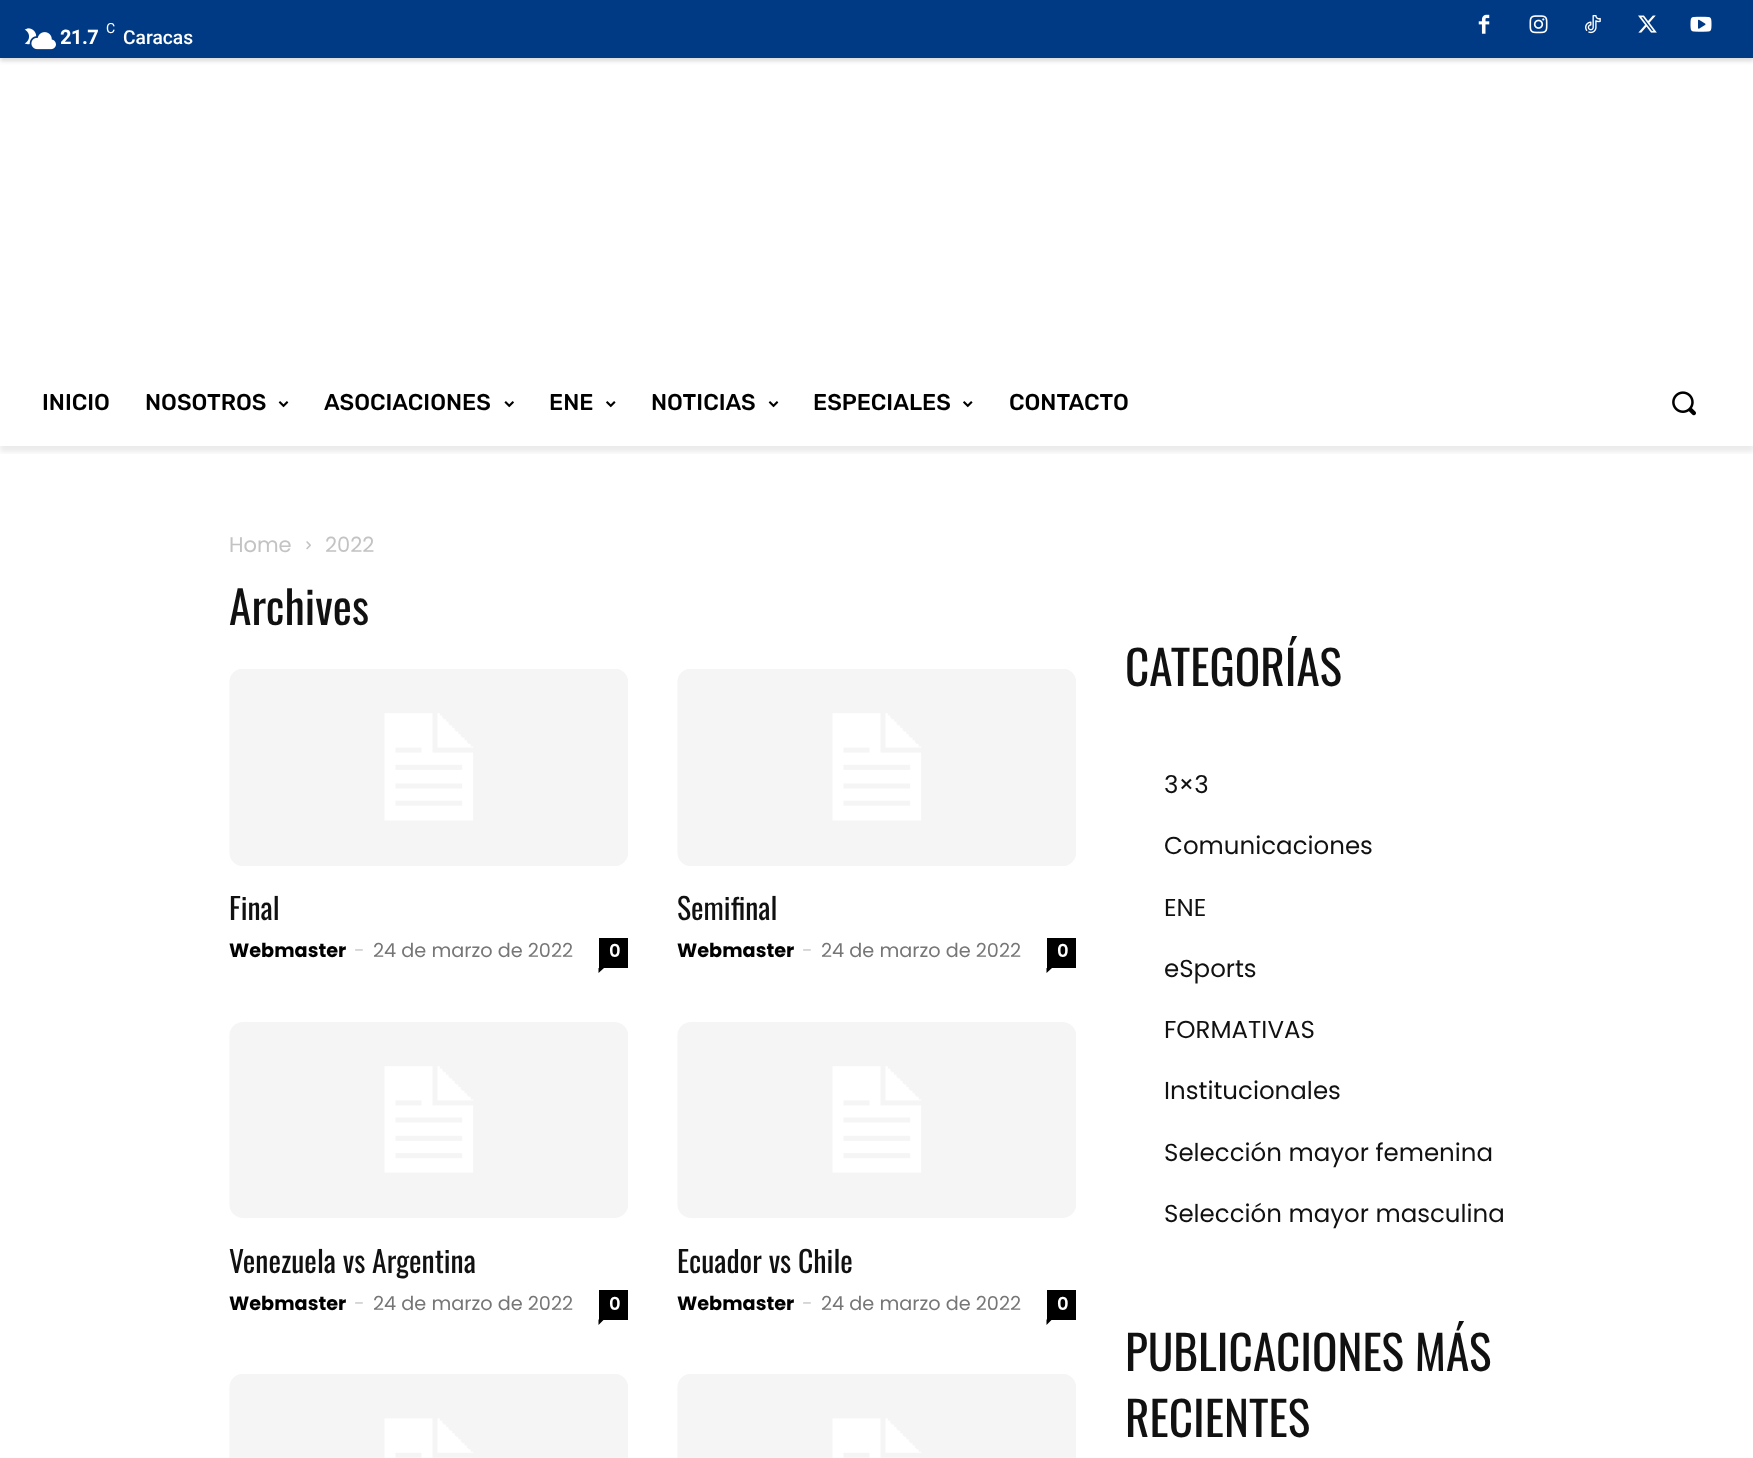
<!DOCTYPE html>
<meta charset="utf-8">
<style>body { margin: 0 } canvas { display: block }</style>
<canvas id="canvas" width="1753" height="1458"></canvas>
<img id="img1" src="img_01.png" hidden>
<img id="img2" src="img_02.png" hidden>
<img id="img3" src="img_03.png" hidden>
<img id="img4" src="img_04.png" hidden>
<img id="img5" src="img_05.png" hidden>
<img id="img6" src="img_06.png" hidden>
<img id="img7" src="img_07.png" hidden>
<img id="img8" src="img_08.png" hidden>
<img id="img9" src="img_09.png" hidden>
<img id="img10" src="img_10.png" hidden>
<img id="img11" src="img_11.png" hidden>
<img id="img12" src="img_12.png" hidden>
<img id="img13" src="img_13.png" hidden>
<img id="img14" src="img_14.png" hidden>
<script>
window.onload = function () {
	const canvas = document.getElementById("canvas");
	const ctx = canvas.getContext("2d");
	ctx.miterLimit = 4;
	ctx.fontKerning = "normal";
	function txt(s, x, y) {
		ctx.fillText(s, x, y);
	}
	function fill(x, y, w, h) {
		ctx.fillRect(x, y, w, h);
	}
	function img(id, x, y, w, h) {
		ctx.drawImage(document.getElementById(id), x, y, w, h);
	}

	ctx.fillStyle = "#FFFFFF";
	fill(0, 0, 1753, 1458);
	ctx.fillStyle = "#003984";
	fill(0, 0, 1753, 58);
	img("img1", 24, 28, 32, 22);
	img("img2", 1478, 14, 12, 20);
	img("img3", 1529, 15, 19, 19);
	img("img4", 1585, 15, 16, 19);
	img("img5", 1638, 15, 19, 18);
	img("img6", 1690, 16, 22, 16);
	ctx.save();
	ctx.beginPath();
	ctx.moveTo(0, 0);
	ctx.lineTo(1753, 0);
	ctx.lineTo(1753, 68);
	ctx.lineTo(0, 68);
	ctx.closePath();
	ctx.moveTo(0, 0);
	ctx.lineTo(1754, 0);
	ctx.lineTo(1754, 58);
	ctx.lineTo(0, 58);
	ctx.closePath();
	ctx.clip("evenodd");
	ctx.fillStyle = "rgba(10, 0, 0, 0.15)";
	ctx.filter = "blur(2px)";
	ctx.beginPath();
	ctx.rect(0, 4, 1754, 57);
	ctx.fill();
	ctx.filter = "none";
	ctx.restore();
	ctx.save();
	ctx.beginPath();
	ctx.rect(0, 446, 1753, 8);
	ctx.clip();
	ctx.fillStyle = "rgba(0, 0, 0, 0.08)";
	ctx.filter = "blur(2.5px)";
	ctx.beginPath();
	ctx.rect(0, 361, 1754, 91);
	ctx.fill();
	ctx.filter = "none";
	ctx.restore();
	img("img7", 278, 401, 11, 7);
	img("img8", 504, 401, 10, 7);
	img("img9", 606, 401, 10, 7);
	img("img7", 768, 401, 11, 7);
	img("img9", 963, 401, 10, 7);
	img("img10", 1672, 391, 24, 25);
	img("img11", 306, 541, 5, 9);
	img("img12", 229, 669, 399, 197);
	ctx.fillStyle = "#000000";
	fill(599, 938, 29, 30);
	ctx.beginPath();
	ctx.moveTo(598.5, 968);
	ctx.lineTo(604, 968);
	ctx.lineTo(598.5, 973);
	ctx.closePath();
	ctx.fill();
	img("img12", 677, 669, 399, 197);
	fill(1047, 938, 29, 30);
	ctx.beginPath();
	ctx.moveTo(1046.5, 968);
	ctx.lineTo(1052, 968);
	ctx.lineTo(1046.5, 973);
	ctx.closePath();
	ctx.fill();
	img("img13", 229, 1022, 399, 196);
	fill(599, 1290, 29, 30);
	ctx.beginPath();
	ctx.moveTo(598.5, 1319.5);
	ctx.lineTo(604, 1319.5);
	ctx.lineTo(598.5, 1325);
	ctx.closePath();
	ctx.fill();
	img("img13", 677, 1022, 399, 196);
	fill(1047, 1290, 29, 30);
	ctx.beginPath();
	ctx.moveTo(1046.5, 1319.5);
	ctx.lineTo(1052, 1319.5);
	ctx.lineTo(1046.5, 1325);
	ctx.closePath();
	ctx.fill();
	img("img14", 229, 1374, 399, 84);
	img("img14", 677, 1374, 399, 84);
	ctx.font = "14px Roboto";
	ctx.fillStyle = "#FFFFFF";
	txt("C", 106, 33);
	ctx.font = "bold 19.25px Roboto";
	txt("21.7", 60, 44);
	ctx.font = "500 19.25px Roboto";
	txt("Caracas", 123, 44);
	ctx.font = "500 22.75px Rubik";
	ctx.fillStyle = "#000000";
	txt("INICIO", 42, 410);
	txt("NOSOTROS", 145, 410);
	txt("ASOCIACIONES", 324, 410);
	txt("ENE", 549, 410);
	txt("NOTICIAS", 651, 410);
	txt("ESPECIALES", 813, 410);
	txt("CONTACTO", 1009, 410);
	ctx.font = "21px Poppins";
	ctx.fillStyle = "#C3C3C3";
	txt("Home", 229, 552);
	txt("2022", 325, 552);
	ctx.font = "45.5px Oswald";
	ctx.fillStyle = "#111111";
	txt("Archives", 229, 625);
	ctx.font = "29.75px Oswald";
	txt("Final", 229, 920);
	ctx.font = "bold 19.25px Poppins";
	ctx.fillStyle = "#000000";
	txt("Webmaster", 229, 957);
	ctx.font = "19.25px Poppins";
	ctx.fillStyle = "#CCCCCC";
	txt("-", 354, 957);
	ctx.fillStyle = "#767676";
	txt("24 de marzo de 2022", 373, 957);
	ctx.font = "600 18px Poppins";
	ctx.fillStyle = "#FFFFFF";
	txt("0", 609, 957);
	ctx.font = "29.75px Oswald";
	ctx.fillStyle = "#111111";
	txt("Semifinal", 677, 920);
	ctx.font = "bold 19.25px Poppins";
	ctx.fillStyle = "#000000";
	txt("Webmaster", 677, 957);
	ctx.font = "19.25px Poppins";
	ctx.fillStyle = "#CCCCCC";
	txt("-", 802, 957);
	ctx.fillStyle = "#767676";
	txt("24 de marzo de 2022", 821, 957);
	ctx.font = "600 18px Poppins";
	ctx.fillStyle = "#FFFFFF";
	txt("0", 1057, 957);
	ctx.font = "29.75px Oswald";
	ctx.fillStyle = "#111111";
	txt("Venezuela vs Argentina", 229, 1273);
	ctx.font = "bold 19.25px Poppins";
	ctx.fillStyle = "#000000";
	txt("Webmaster", 229, 1310);
	ctx.font = "19.25px Poppins";
	ctx.fillStyle = "#CCCCCC";
	txt("-", 354, 1310);
	ctx.fillStyle = "#767676";
	txt("24 de marzo de 2022", 373, 1310);
	ctx.font = "600 18px Poppins";
	ctx.fillStyle = "#FFFFFF";
	txt("0", 609, 1310);
	ctx.font = "29.75px Oswald";
	ctx.fillStyle = "#111111";
	txt("Ecuador vs Chile", 677, 1273);
	ctx.font = "bold 19.25px Poppins";
	ctx.fillStyle = "#000000";
	txt("Webmaster", 677, 1310);
	ctx.font = "19.25px Poppins";
	ctx.fillStyle = "#CCCCCC";
	txt("-", 802, 1310);
	ctx.fillStyle = "#767676";
	txt("24 de marzo de 2022", 821, 1310);
	ctx.font = "600 18px Poppins";
	ctx.fillStyle = "#FFFFFF";
	txt("0", 1057, 1310);
	ctx.font = "47.25px Oswald";
	ctx.fillStyle = "#111111";
	txt("CATEGORÍAS", 1125, 686);
	ctx.font = "24.5px Poppins";
	txt("3×3", 1164, 793);
	txt("Comunicaciones", 1164, 854);
	txt("ENE", 1164, 916);
	txt("eSports", 1164, 977);
	txt("FORMATIVAS", 1164, 1038);
	txt("Institucionales", 1164, 1099);
	txt("Selección mayor femenina", 1164, 1161);
	txt("Selección mayor masculina", 1164, 1222);
	ctx.font = "47.25px Oswald";
	txt("PUBLICACIONES MÁS", 1125, 1371);
	txt("RECIENTES", 1125, 1437);
};
</script>
